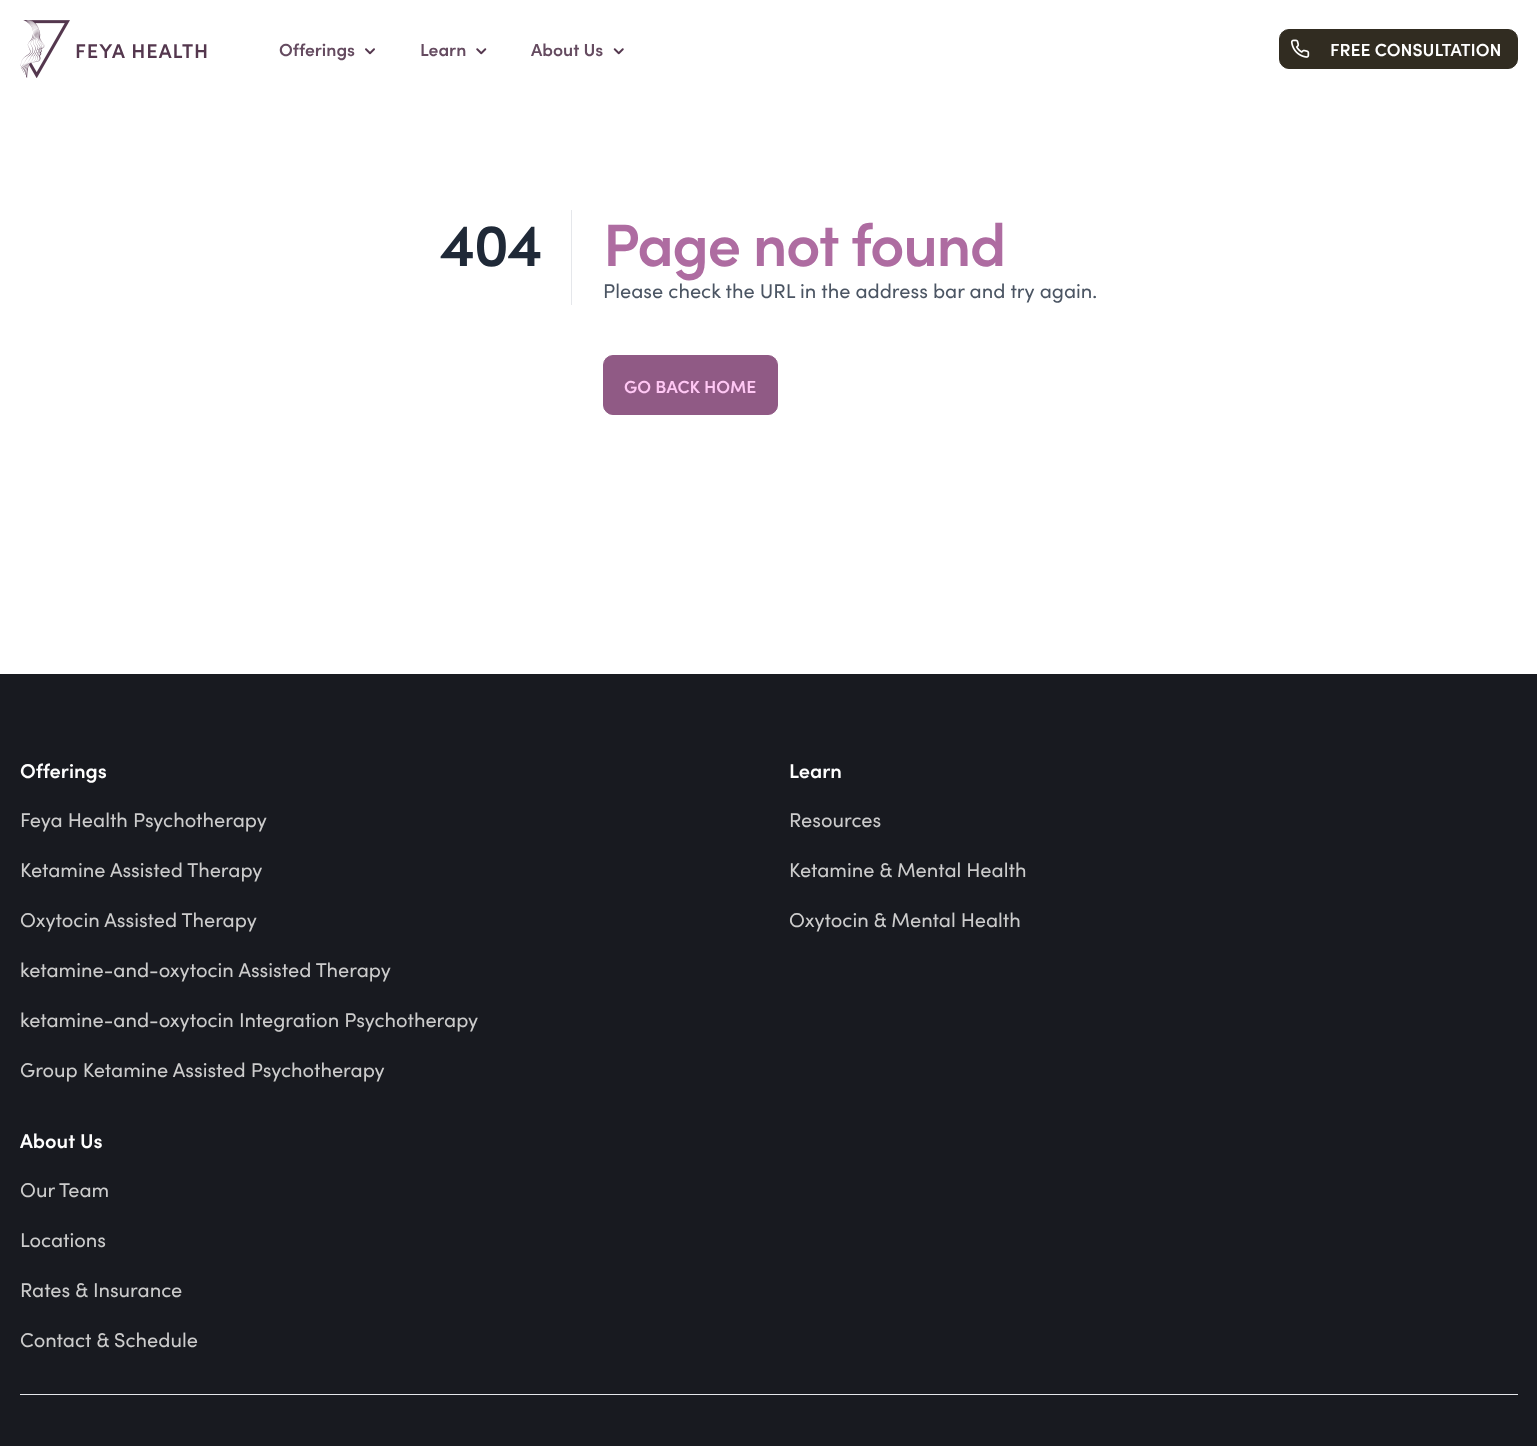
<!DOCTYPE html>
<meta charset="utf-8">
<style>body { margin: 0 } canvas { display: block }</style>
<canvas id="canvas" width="1537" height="1446"></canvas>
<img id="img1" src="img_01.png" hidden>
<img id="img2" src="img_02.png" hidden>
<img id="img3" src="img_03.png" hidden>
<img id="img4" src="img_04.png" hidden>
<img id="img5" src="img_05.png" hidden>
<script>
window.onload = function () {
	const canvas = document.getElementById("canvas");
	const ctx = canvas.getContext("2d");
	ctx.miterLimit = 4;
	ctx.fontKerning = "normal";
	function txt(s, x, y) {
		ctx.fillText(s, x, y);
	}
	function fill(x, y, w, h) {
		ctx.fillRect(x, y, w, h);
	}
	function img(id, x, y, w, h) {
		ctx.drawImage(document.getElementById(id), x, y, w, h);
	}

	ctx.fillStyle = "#FFFFFF";
	fill(0, 0, 1537, 1446);
	img("img1", 20, 20, 50, 58);
	img("img2", 365, 48, 10, 7);
	img("img3", 476, 48, 11, 7);
	img("img4", 613, 48, 11, 7);
	ctx.fillStyle = "#312C21";
	ctx.beginPath();
	ctx.roundRect(1279.5, 29.5, 238, 39, 9.5);
	ctx.fill();
	ctx.strokeStyle = "#312C21";
	ctx.stroke();
	img("img5", 1290, 39, 20, 19);
	ctx.fillStyle = "#E5E7EB";
	fill(571, 210, 1, 95);
	ctx.fillStyle = "#905A85";
	ctx.beginPath();
	ctx.roundRect(603.5, 355.5, 174, 59, 9.5);
	ctx.fill();
	ctx.strokeStyle = "#905A85";
	ctx.stroke();
	ctx.fillStyle = "#181A20";
	fill(0, 674, 1537, 772);
	ctx.fillStyle = "#E5E7EB";
	fill(20, 1394, 1498, 1);
	ctx.letterSpacing = "1px";
	ctx.font = "600 20px Sofia";
	ctx.fillStyle = "#54374E";
	txt("FEYA HEALTH", 75, 58);
	ctx.letterSpacing = "0px";
	ctx.font = "600 17.5px Sofia";
	ctx.fillStyle = "#654B60";
	txt("Offerings", 279, 56);
	txt("Learn", 420, 56);
	txt("About Us", 531, 56);
	ctx.fillStyle = "#FFFFFF";
	txt("FREE CONSULTATION", 1330, 56);
	ctx.letterSpacing = "-1.5px";
	ctx.font = "600 60px Sofia";
	ctx.fillStyle = "#1F2937";
	txt("404", 440, 266);
	ctx.fillStyle = "#AE6CA1";
	txt("Page not found", 603, 266);
	ctx.letterSpacing = "0px";
	ctx.font = "20px Sofia";
	ctx.fillStyle = "#4B5563";
	txt("Please check the URL in the address bar and try again.", 603, 298);
	ctx.font = "600 17.5px Sofia";
	ctx.fillStyle = "#FFC7F4";
	txt("GO BACK HOME", 624, 393);
	ctx.font = "600 20px Sofia";
	ctx.fillStyle = "#FFFFFF";
	txt("Offerings", 20, 778);
	ctx.font = "20px Sofia";
	ctx.fillStyle = "#CCCCCC";
	txt("Feya Health Psychotherapy", 20, 827);
	txt("Ketamine Assisted Therapy", 20, 877);
	txt("Oxytocin Assisted Therapy", 20, 927);
	txt("ketamine-and-oxytocin Assisted Therapy", 20, 977);
	txt("ketamine-and-oxytocin Integration Psychotherapy", 20, 1027);
	txt("Group Ketamine Assisted Psychotherapy", 20, 1077);
	ctx.font = "600 20px Sofia";
	ctx.fillStyle = "#FFFFFF";
	txt("Learn", 789, 778);
	ctx.font = "20px Sofia";
	ctx.fillStyle = "#CCCCCC";
	txt("Resources", 789, 827);
	txt("Ketamine & Mental Health", 789, 877);
	txt("Oxytocin & Mental Health", 789, 927);
	ctx.font = "600 20px Sofia";
	ctx.fillStyle = "#FFFFFF";
	txt("About Us", 20, 1148);
	ctx.font = "20px Sofia";
	ctx.fillStyle = "#CCCCCC";
	txt("Our Team", 20, 1197);
	txt("Locations", 20, 1247);
	txt("Rates & Insurance", 20, 1297);
	txt("Contact & Schedule", 20, 1347);
};
</script>
